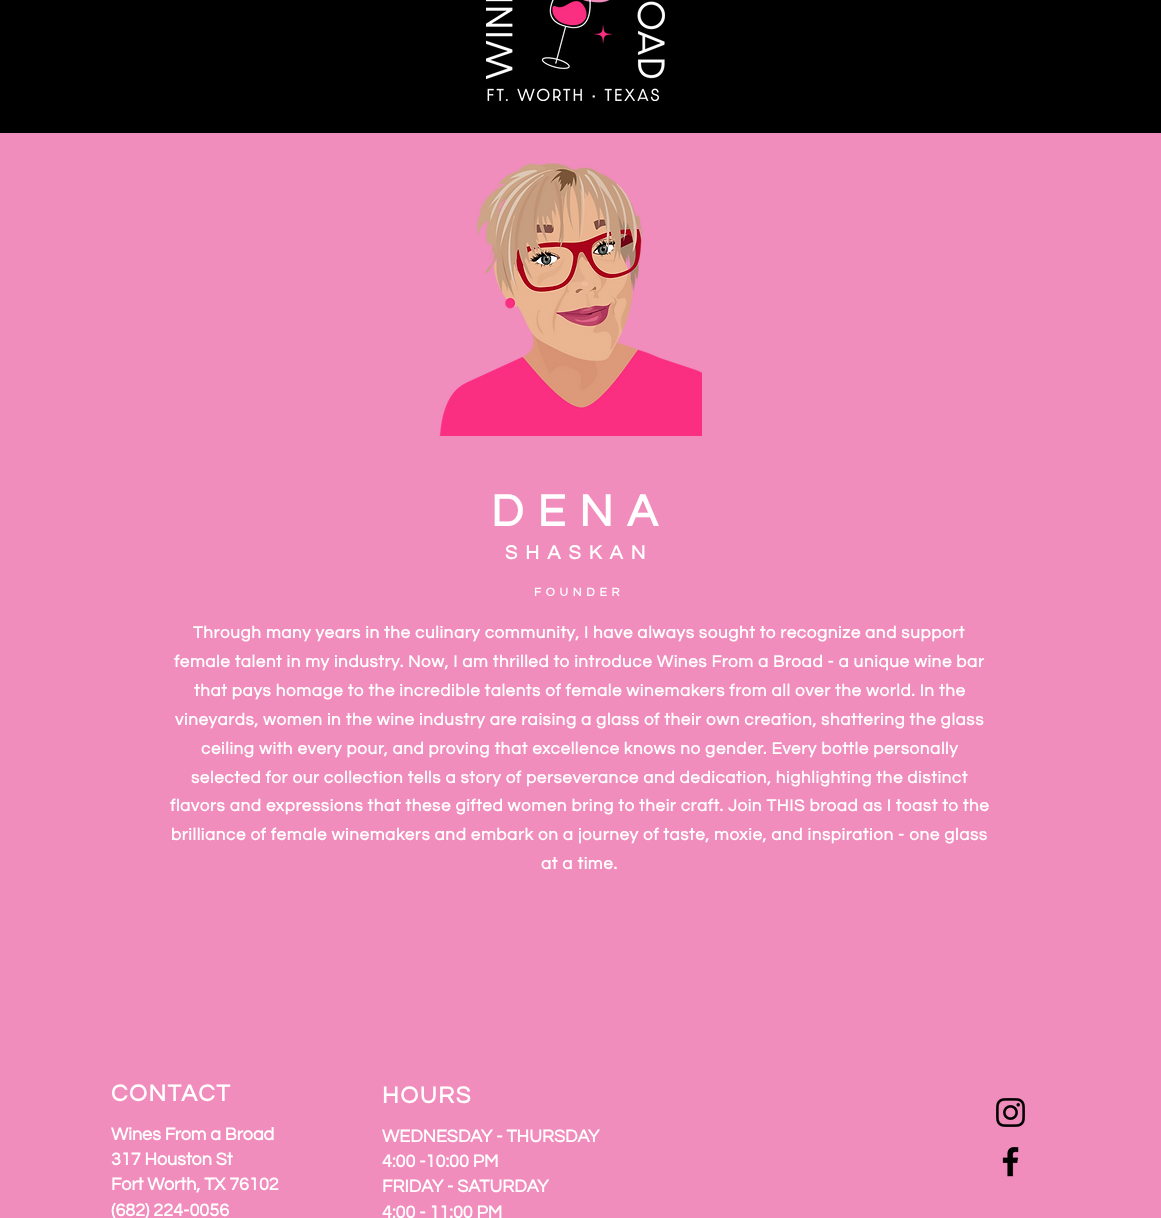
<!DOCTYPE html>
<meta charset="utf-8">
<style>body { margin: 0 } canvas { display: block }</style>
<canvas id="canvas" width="1161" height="1218"></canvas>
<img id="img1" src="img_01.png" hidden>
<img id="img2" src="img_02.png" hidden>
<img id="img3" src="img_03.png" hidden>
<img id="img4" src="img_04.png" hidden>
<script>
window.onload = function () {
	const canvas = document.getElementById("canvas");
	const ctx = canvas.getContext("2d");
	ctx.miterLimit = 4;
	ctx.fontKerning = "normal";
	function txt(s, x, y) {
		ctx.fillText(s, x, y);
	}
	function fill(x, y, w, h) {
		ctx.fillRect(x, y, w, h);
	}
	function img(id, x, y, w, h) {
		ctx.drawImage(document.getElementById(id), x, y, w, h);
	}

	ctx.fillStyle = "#000000";
	fill(0, 0, 1161, 1218);
	img("img1", 486, 0, 179, 101);
	ctx.fillStyle = "#F18DBC";
	fill(0, 133, 1161, 1085);
	img("img2", 439, 163, 263, 273);
	img("img3", 996, 1098, 29, 29);
	img("img4", 1002, 1147, 17, 30);
	ctx.letterSpacing = "14px";
	ctx.font = "bold 46px Questrial";
	ctx.fillStyle = "#FFFFFF";
	txt("DENA", 491, 526);
	ctx.letterSpacing = "8px";
	ctx.font = "bold 20px Questrial";
	txt("SHASKAN", 505, 559);
	ctx.letterSpacing = "4.75px";
	ctx.font = "bold 12px Questrial";
	txt("FOUNDER", 534, 596);
	ctx.letterSpacing = "0.68px";
	ctx.font = "bold 17px Questrial";
	txt("Through many years in the culinary community, I have always sought to recognize and support", 193, 638);
	txt("female talent in my industry. Now, I am thrilled to introduce Wines From a Broad - a unique wine bar", 174, 667);
	txt("that pays homage to the incredible talents of female winemakers from all over the world. In the", 194, 696);
	txt("vineyards, women in the wine industry are raising a glass of their own creation, shattering the glass", 175, 725);
	txt("ceiling with every pour, and proving that excellence knows no gender. Every bottle personally", 201, 754);
	txt("selected for our collection tells a story of perseverance and dedication, highlighting the distinct", 191, 783);
	txt("flavors and expressions that these gifted women bring to their craft. Join THIS broad as I toast to the", 170, 811);
	txt("brilliance of female winemakers and embark on a journey of taste, moxie, and inspiration - one glass", 171, 840);
	txt("at a time.", 541, 869);
	ctx.letterSpacing = "1.5px";
	ctx.font = "bold 24px Questrial";
	txt("CONTACT", 111, 1101);
	txt("HOURS", 382, 1103);
	ctx.letterSpacing = "0px";
	ctx.font = "bold 18px Questrial";
	txt("Wines From a Broad", 111, 1140);
	txt("317 Houston St", 111, 1165);
	txt("Fort Worth, TX 76102", 111, 1190);
	txt("(682) 224-0056", 111, 1216);
	txt("WEDNESDAY - THURSDAY", 382, 1142);
	txt("4:00 -10:00 PM", 382, 1167);
	txt("FRIDAY - SATURDAY", 382, 1192);
	txt("4:00 - 11:00 PM", 382, 1218);
};
</script>
